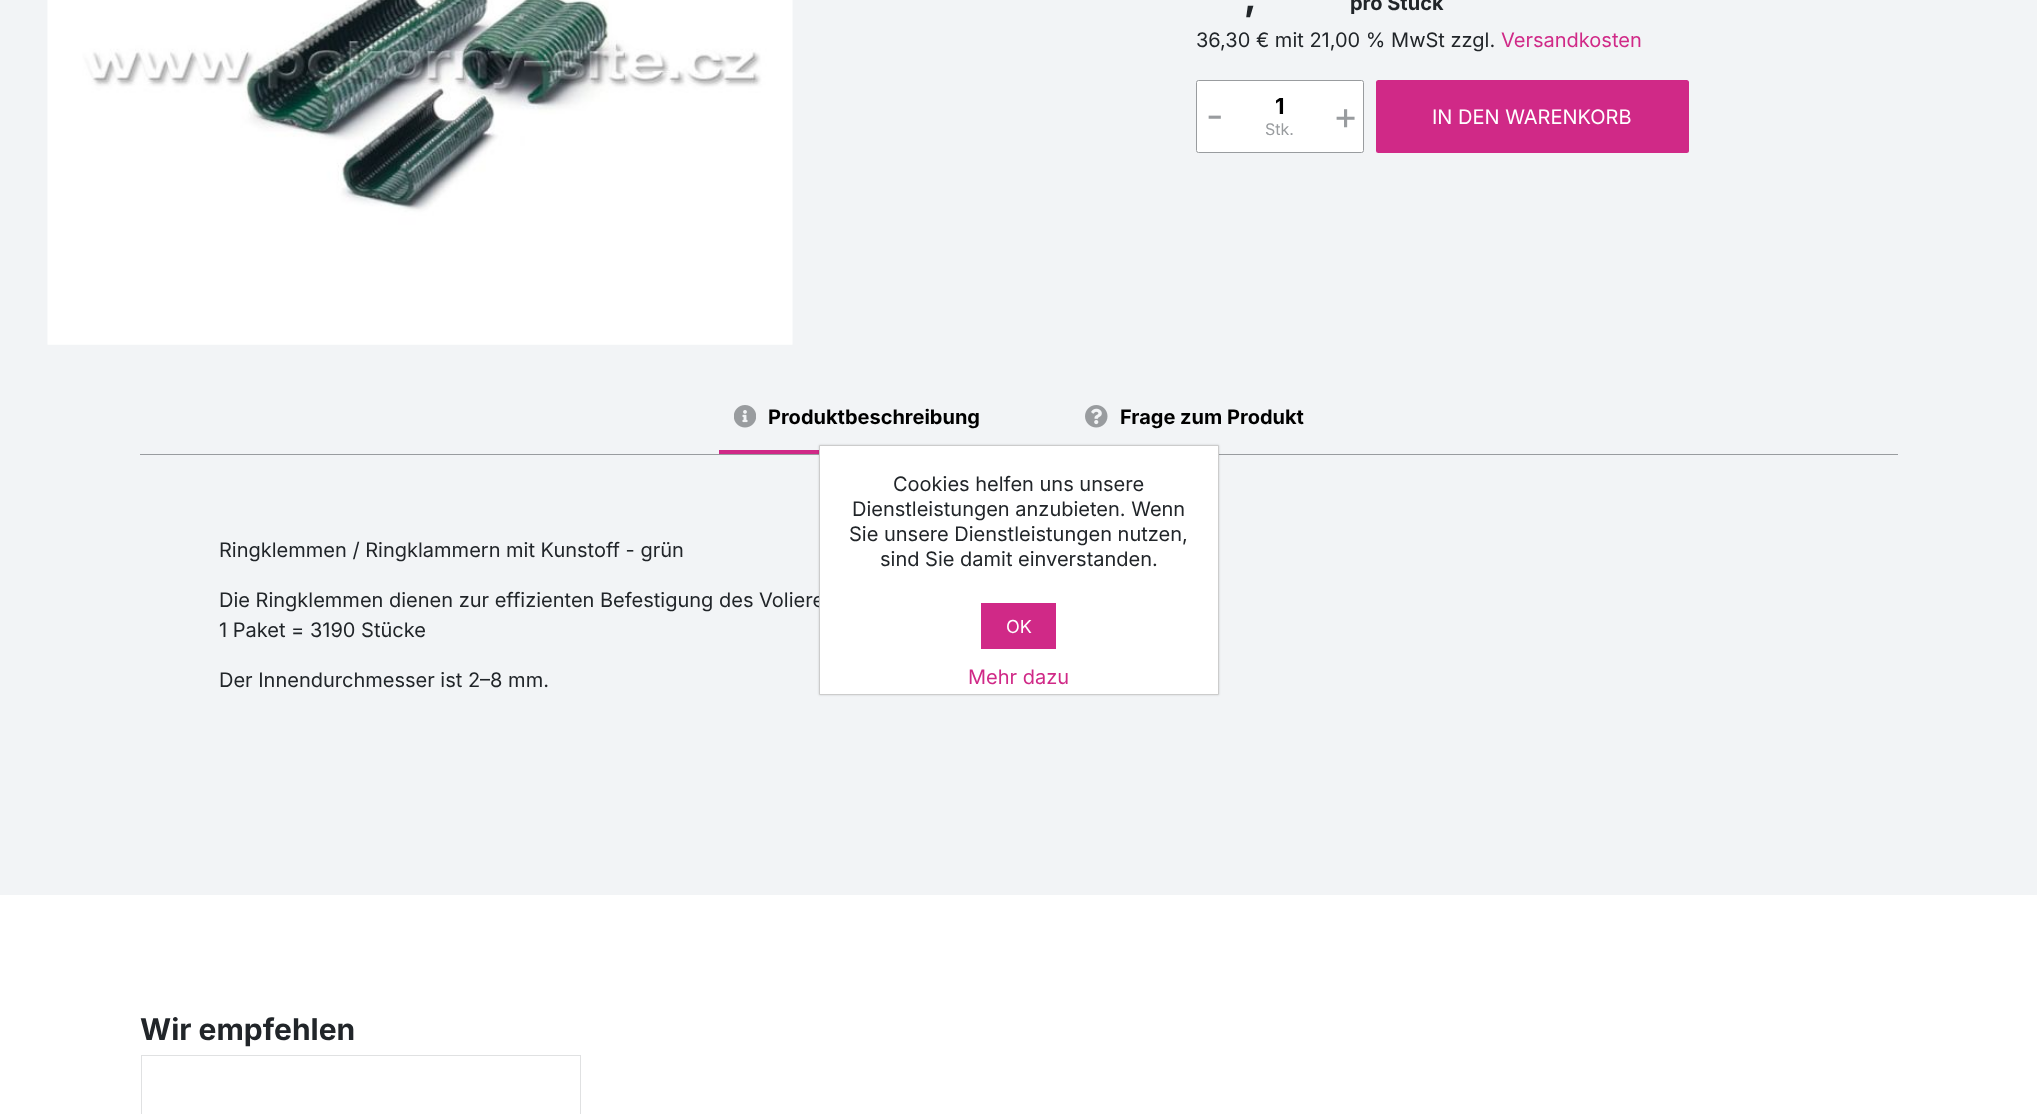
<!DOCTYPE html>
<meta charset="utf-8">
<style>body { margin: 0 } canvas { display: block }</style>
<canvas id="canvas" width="2037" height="1114"></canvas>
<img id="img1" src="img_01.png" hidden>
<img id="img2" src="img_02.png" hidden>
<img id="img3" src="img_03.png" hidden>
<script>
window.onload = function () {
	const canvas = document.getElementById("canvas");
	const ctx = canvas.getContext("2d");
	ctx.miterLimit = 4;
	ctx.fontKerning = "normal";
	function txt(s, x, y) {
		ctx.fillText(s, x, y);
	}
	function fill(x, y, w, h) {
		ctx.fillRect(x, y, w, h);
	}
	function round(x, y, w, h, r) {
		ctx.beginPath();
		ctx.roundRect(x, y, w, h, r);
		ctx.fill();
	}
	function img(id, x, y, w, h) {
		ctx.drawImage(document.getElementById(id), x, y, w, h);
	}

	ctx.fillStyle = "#FFFFFF";
	fill(0, 0, 2037, 1114);
	ctx.fillStyle = "#F2F4F6";
	fill(0, 0, 2037, 895);
	img("img1", 47, 0, 746, 345);
	ctx.fillStyle = "#FFFFFF";
	ctx.beginPath();
	ctx.roundRect(1196.5, 80.5, 167, 72, 2);
	ctx.fill();
	ctx.strokeStyle = "#999C9F";
	ctx.stroke();
	ctx.fillStyle = "#D02987";
	round(1376, 80, 313, 73, 2.5);
	ctx.fillStyle = "#999C9F";
	fill(140, 454, 1758, 1);
	ctx.fillStyle = "#D02987";
	fill(719, 450, 100, 4);
	img("img2", 734, 405, 22, 23);
	img("img3", 1085, 405, 23, 23);
	ctx.fillStyle = "rgba(0, 0, 0, 0.15)";
	ctx.filter = "blur(1px)";
	ctx.beginPath();
	ctx.rect(819, 445, 400, 250);
	ctx.fill();
	ctx.filter = "none";
	ctx.fillStyle = "#E0E1E2";
	fill(141, 1055, 439, 1);
	fill(141, 1055, 1, 59);
	fill(580, 1055, 1, 59);
	ctx.font = "bold 38px Inter";
	ctx.fillStyle = "#212529";
	txt(",", 1244, 10);
	ctx.font = "bold 20px Inter";
	txt("pro Stück", 1350, 10);
	ctx.font = "20px Inter";
	txt("36,30 € mit 21,00 % MwSt zzgl.", 1196, 47);
	ctx.fillStyle = "#D02987";
	txt("Versandkosten", 1501, 47);
	ctx.font = "bold 22px Inter";
	ctx.fillStyle = "#000000";
	txt("1", 1275, 114);
	ctx.font = "38px Inter";
	ctx.fillStyle = "#999C9F";
	txt("-", 1206, 129);
	txt("+", 1333, 129);
	ctx.font = "16px Inter";
	txt("Stk.", 1265, 135);
	ctx.font = "20px Inter";
	ctx.fillStyle = "#FFFFFF";
	txt("IN DEN WARENKORB", 1432, 124);
	ctx.font = "bold 20px Inter";
	ctx.fillStyle = "#000000";
	txt("Produktbeschreibung", 768, 424);
	txt("Frage zum Produkt", 1120, 424);
	ctx.font = "20px Inter";
	ctx.fillStyle = "#212529";
	txt("Ringklemmen / Ringklammern mit Kunstoff - grün", 219, 557);
	txt("Die Ringklemmen dienen zur effizienten Befestigung des Voliere", 219, 607);
	txt("1 Paket = 3190 Stücke", 219, 637);
	txt("Der Innendurchmesser ist 2–8 mm.", 219, 687);
	ctx.fillStyle = "#FFFFFF";
	ctx.beginPath();
	ctx.rect(819.5, 445.5, 399, 249);
	ctx.fill();
	ctx.strokeStyle = "#CCCCCC";
	ctx.stroke();
	ctx.fillStyle = "#212529";
	txt("Cookies helfen uns unsere", 893, 491);
	txt("Dienstleistungen anzubieten. Wenn", 852, 516);
	txt("Sie unsere Dienstleistungen nutzen,", 849, 541);
	txt("sind Sie damit einverstanden.", 880, 566);
	ctx.fillStyle = "#D02987";
	fill(981, 603, 75, 46);
	ctx.font = "18px Inter";
	ctx.fillStyle = "#FFFFFF";
	txt("OK", 1006, 633);
	ctx.font = "20px Inter";
	ctx.fillStyle = "#D02987";
	txt("Mehr dazu", 968, 684);
	ctx.font = "bold 30px Inter";
	ctx.fillStyle = "#212529";
	txt("Wir empfehlen", 140, 1040);
};
</script>
